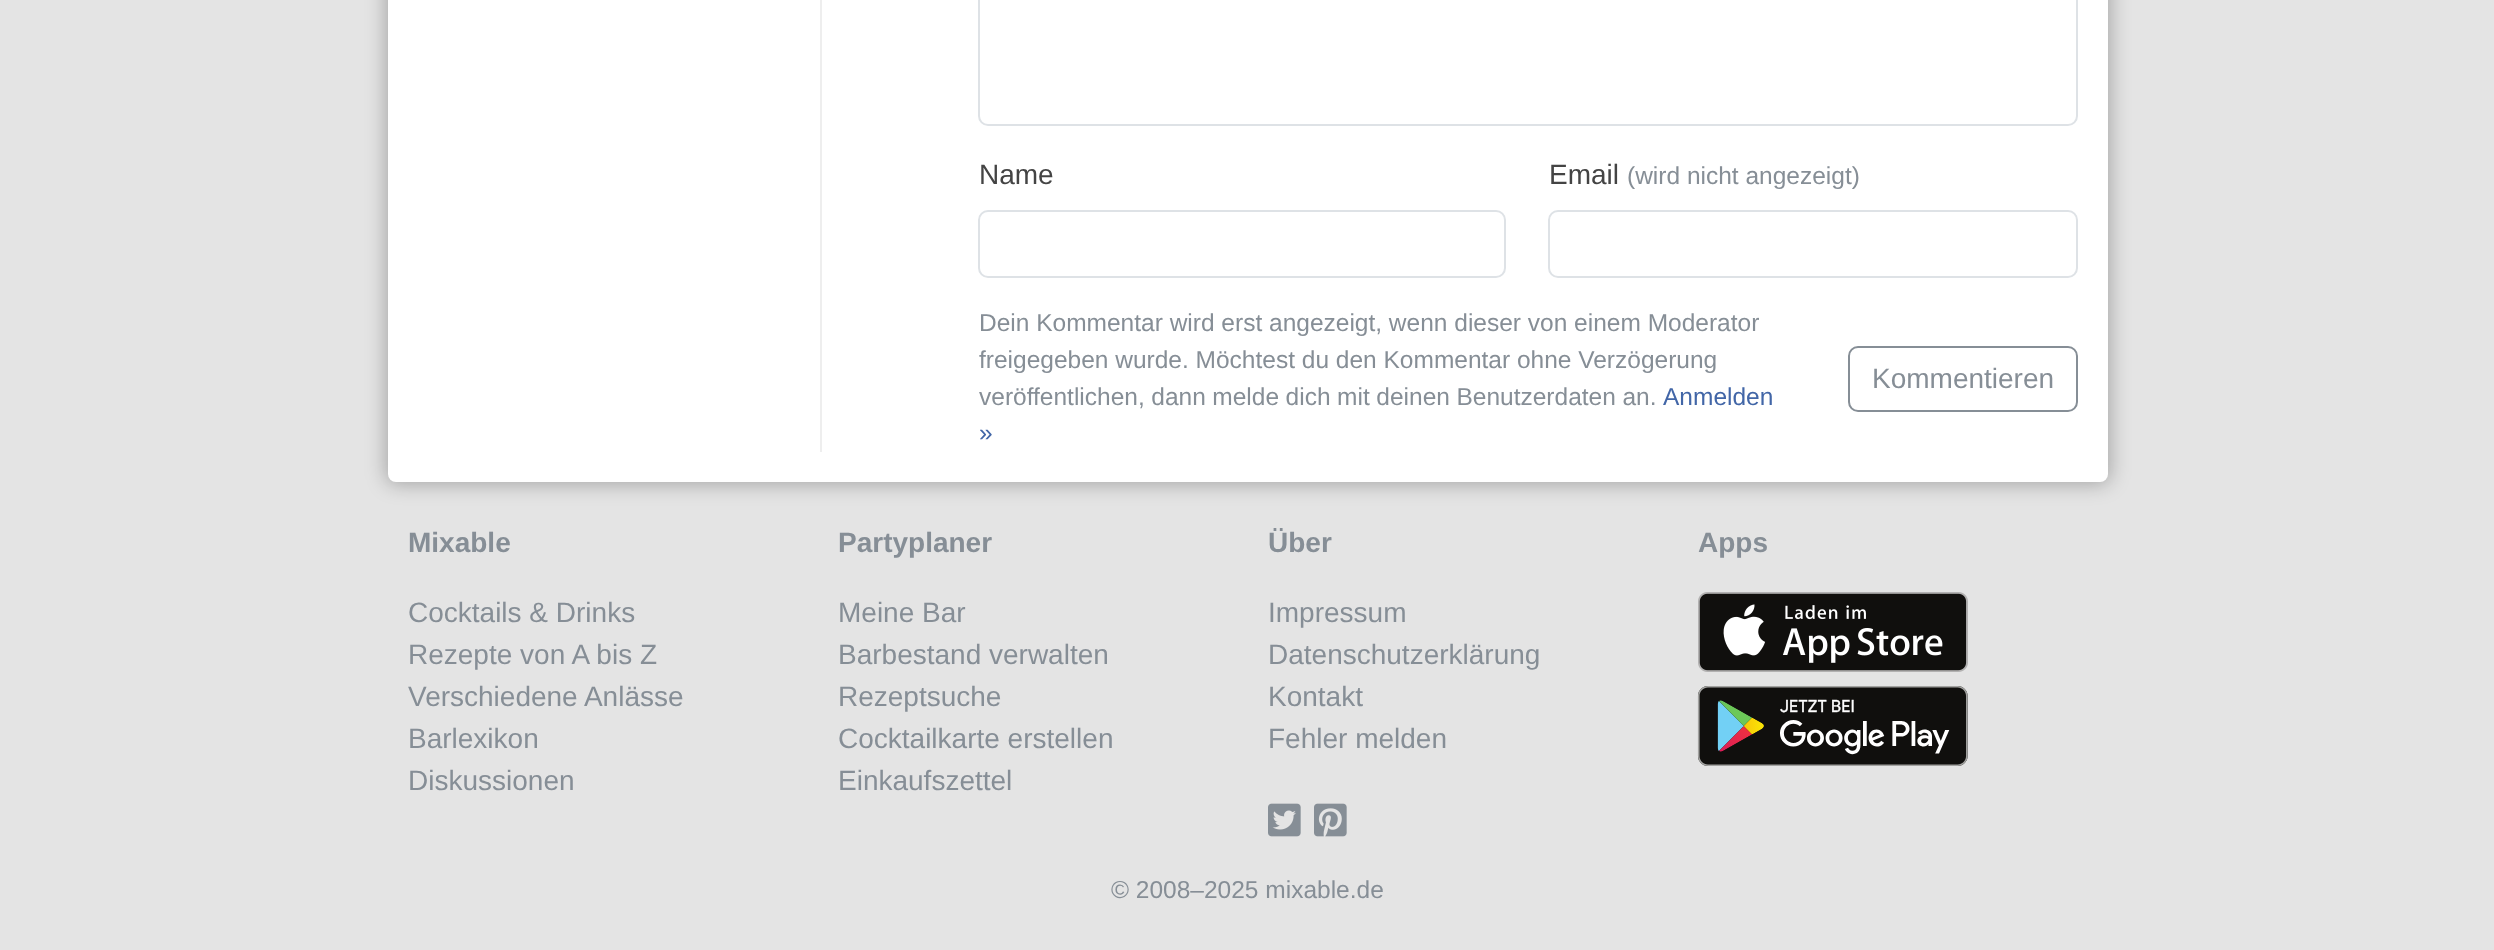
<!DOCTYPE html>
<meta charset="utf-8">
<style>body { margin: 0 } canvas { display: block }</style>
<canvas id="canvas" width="2494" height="950"></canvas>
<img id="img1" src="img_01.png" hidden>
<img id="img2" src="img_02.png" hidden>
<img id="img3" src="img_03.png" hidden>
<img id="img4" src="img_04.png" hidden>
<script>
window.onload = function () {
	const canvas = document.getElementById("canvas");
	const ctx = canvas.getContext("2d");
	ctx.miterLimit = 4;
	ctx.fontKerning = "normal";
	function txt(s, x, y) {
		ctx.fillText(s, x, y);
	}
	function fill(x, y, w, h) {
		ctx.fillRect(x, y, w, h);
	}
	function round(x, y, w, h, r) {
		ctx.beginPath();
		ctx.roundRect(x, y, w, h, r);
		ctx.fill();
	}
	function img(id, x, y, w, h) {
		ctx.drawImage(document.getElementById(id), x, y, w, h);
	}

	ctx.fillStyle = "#E4E4E4";
	fill(0, 0, 2494, 950);
	ctx.fillStyle = "rgba(0, 0, 0, 0.28)";
	ctx.filter = "blur(10px)";
	ctx.beginPath();
	ctx.roundRect(386, -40, 1724, 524, 10);
	ctx.fill();
	ctx.filter = "none";
	ctx.fillStyle = "#FFFFFF";
	round(388, -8, 1720, 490, 8);
	ctx.fillStyle = "#EEEEEE";
	fill(820, 0, 2, 452);
	ctx.beginPath();
	ctx.roundRect(979, -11, 1098, 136, 9);
	ctx.strokeStyle = "#DEE2E6";
	ctx.lineWidth = 2;
	ctx.stroke();
	ctx.beginPath();
	ctx.roundRect(979, 211, 526, 66, 9);
	ctx.stroke();
	ctx.beginPath();
	ctx.roundRect(1549, 211, 528, 66, 9);
	ctx.stroke();
	ctx.beginPath();
	ctx.roundRect(1849, 347, 228, 64, 9);
	ctx.strokeStyle = "#868E96";
	ctx.stroke();
	img("img1", 1268, 803, 33, 34);
	img("img2", 1314, 803, 33, 34);
	img("img3", 1698, 592, 270, 80);
	img("img4", 1697, 686, 271, 80);
	ctx.font = "28px Liberation Sans";
	ctx.fillStyle = "#444444";
	txt("Name", 979, 184);
	txt("Email", 1549, 184);
	ctx.font = "24.5px Liberation Sans";
	ctx.fillStyle = "#868E96";
	txt("(wird nicht angezeigt)", 1627, 184);
	txt("Dein Kommentar wird erst angezeigt, wenn dieser von einem Moderator", 979, 331);
	txt("freigegeben wurde. Möchtest du den Kommentar ohne Verzögerung", 979, 368);
	ctx.wordSpacing = "-0.25px";
	txt("veröffentlichen, dann melde dich mit deinen Benutzerdaten an.", 979, 405);
	ctx.wordSpacing = "0px";
	ctx.fillStyle = "#4266A7";
	txt("Anmelden", 1663, 405);
	txt("»", 979, 441);
	ctx.font = "28px Liberation Sans";
	ctx.fillStyle = "#868E96";
	txt("Kommentieren", 1872, 388);
	ctx.font = "bold 28px Liberation Sans";
	txt("Mixable", 408, 552);
	ctx.font = "28px Liberation Sans";
	txt("Cocktails & Drinks", 408, 622);
	txt("Rezepte von A bis Z", 408, 664);
	txt("Verschiedene Anlässe", 408, 706);
	txt("Barlexikon", 408, 748);
	txt("Diskussionen", 408, 790);
	ctx.font = "bold 28px Liberation Sans";
	txt("Partyplaner", 838, 552);
	ctx.font = "28px Liberation Sans";
	txt("Meine Bar", 838, 622);
	txt("Barbestand verwalten", 838, 664);
	txt("Rezeptsuche", 838, 706);
	txt("Cocktailkarte erstellen", 838, 748);
	txt("Einkaufszettel", 838, 790);
	ctx.font = "bold 28px Liberation Sans";
	txt("Über", 1268, 552);
	ctx.font = "28px Liberation Sans";
	txt("Impressum", 1268, 622);
	txt("Datenschutzerklärung", 1268, 664);
	txt("Kontakt", 1268, 706);
	txt("Fehler melden", 1268, 748);
	ctx.font = "bold 28px Liberation Sans";
	txt("Apps", 1698, 552);
	ctx.font = "24.5px Liberation Sans";
	txt("© 2008–2025 mixable.de", 1111, 898);
};
</script>
